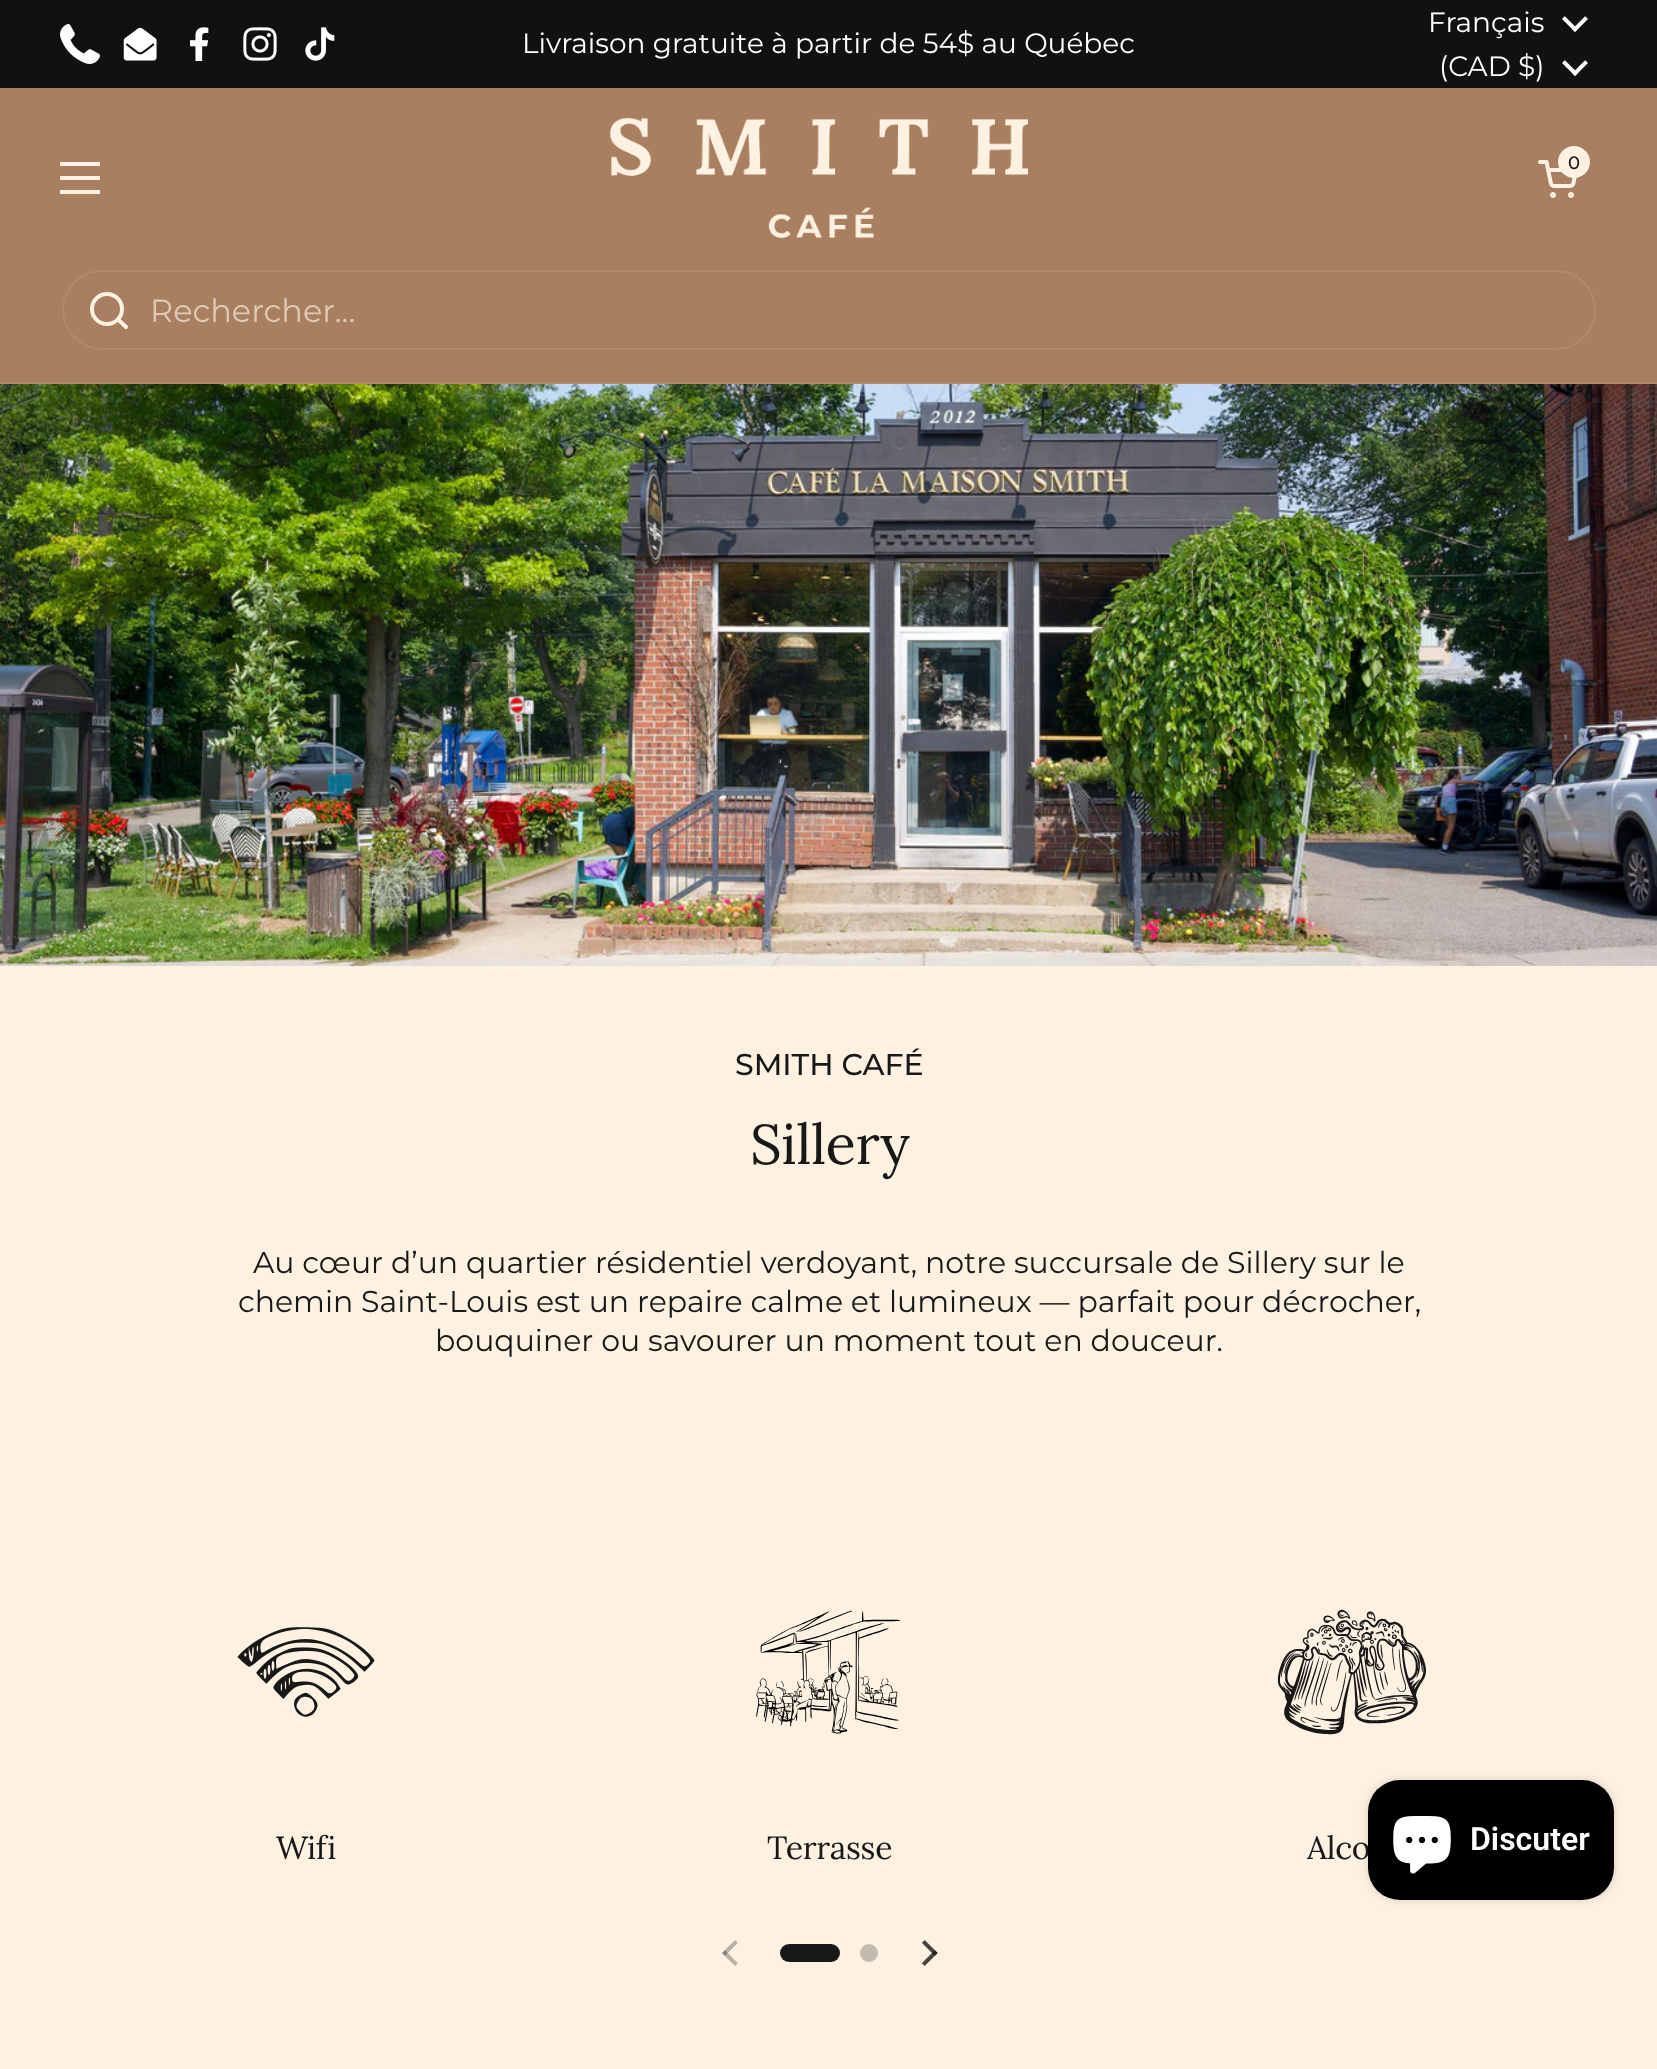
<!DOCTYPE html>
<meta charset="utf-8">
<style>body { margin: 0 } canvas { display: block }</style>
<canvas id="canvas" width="1657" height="2069"></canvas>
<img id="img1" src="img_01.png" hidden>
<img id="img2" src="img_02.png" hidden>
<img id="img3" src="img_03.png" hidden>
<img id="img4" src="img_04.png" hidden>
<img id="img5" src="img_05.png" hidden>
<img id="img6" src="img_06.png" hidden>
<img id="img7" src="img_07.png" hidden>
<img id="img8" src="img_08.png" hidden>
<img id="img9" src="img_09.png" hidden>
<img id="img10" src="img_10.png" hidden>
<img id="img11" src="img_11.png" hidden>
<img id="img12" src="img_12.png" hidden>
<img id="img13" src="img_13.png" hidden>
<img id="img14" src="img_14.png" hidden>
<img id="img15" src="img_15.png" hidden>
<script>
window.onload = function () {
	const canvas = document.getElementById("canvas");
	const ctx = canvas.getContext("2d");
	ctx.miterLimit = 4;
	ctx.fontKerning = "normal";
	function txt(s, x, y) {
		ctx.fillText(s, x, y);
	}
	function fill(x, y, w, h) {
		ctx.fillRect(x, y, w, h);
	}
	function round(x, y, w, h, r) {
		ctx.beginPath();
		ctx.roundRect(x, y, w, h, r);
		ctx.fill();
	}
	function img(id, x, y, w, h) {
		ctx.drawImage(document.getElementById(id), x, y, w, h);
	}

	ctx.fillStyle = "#FDF1E2";
	fill(0, 0, 1657, 2069);
	ctx.fillStyle = "#111111";
	fill(0, 0, 1657, 88);
	img("img1", 60, 24, 40, 40);
	img("img2", 123, 27, 34, 34);
	img("img3", 190, 27, 19, 34);
	img("img4", 243, 27, 34, 34);
	img("img5", 305, 27, 30, 34);
	img("img6", 1562, 16, 26, 16);
	img("img6", 1562, 60, 26, 16);
	ctx.fillStyle = "#A97F61";
	fill(0, 88, 1657, 294);
	ctx.fillStyle = "#FDF1E2";
	fill(60, 162, 40, 4);
	fill(60, 176, 40, 4);
	fill(60, 190, 40, 4);
	img("img7", 610, 118, 418, 120);
	img("img8", 1538, 160, 39, 38);
	ctx.beginPath();
	ctx.arc(1574, 162, 16, 0, Math.PI * 2);
	ctx.fill();
	ctx.fillStyle = "#B18A6E";
	fill(0, 382, 1657, 2);
	ctx.beginPath();
	ctx.roundRect(63, 271, 1532, 78, 39);
	ctx.strokeStyle = "#B18A6E";
	ctx.lineWidth = 2;
	ctx.stroke();
	ctx.beginPath();
	ctx.arc(107, 309, 15, 0, Math.PI * 2);
	ctx.strokeStyle = "#FDF1E2";
	ctx.lineWidth = 4;
	ctx.stroke();
	ctx.fillStyle = "#FDF1E2";
	ctx.beginPath();
	ctx.moveTo(120, 318.5);
	ctx.lineTo(119, 317);
	ctx.lineTo(116, 320);
	ctx.lineTo(117.5, 321.5);
	ctx.closePath();
	ctx.moveTo(124.5, 328.5);
	ctx.bezierCurveTo(126.5, 330.5, 129, 327.5, 127.5, 325.5);
	ctx.closePath();
	ctx.moveTo(117.5, 321.5);
	ctx.lineTo(124.5, 328.5);
	ctx.lineTo(127.5, 325.5);
	ctx.lineTo(120, 318.5);
	ctx.closePath();
	ctx.fill();
	img("img9", 0, 384, 1657, 582);
	img("img10", 237, 1627, 138, 90);
	img("img11", 756, 1610, 144, 124);
	img("img12", 1277, 1609, 149, 126);
	img("img13", 722, 1940, 16, 26);
	ctx.fillStyle = "#181818";
	round(780, 1944, 60, 18, 9);
	ctx.fillStyle = "#C4BBB0";
	ctx.beginPath();
	ctx.arc(869, 1953, 9, 0, Math.PI * 2);
	ctx.fill();
	img("img14", 921, 1940, 17, 26);
	ctx.fillStyle = "rgba(0, 0, 0, 0.15)";
	ctx.filter = "blur(5px)";
	ctx.beginPath();
	ctx.roundRect(1368, 1780, 246, 120, 32);
	ctx.fill();
	ctx.filter = "none";
	ctx.font = "28px Montserrat";
	ctx.fillStyle = "#FFFFFF";
	txt("Livraison gratuite à partir de 54$ au Québec", 522, 53);
	txt("Français", 1428, 32);
	txt("(CAD $)", 1439, 76);
	ctx.font = "500 18px Montserrat";
	ctx.fillStyle = "#181818";
	txt("0", 1568, 169);
	ctx.font = "32px Montserrat";
	ctx.fillStyle = "#E0CAB6";
	txt("Rechercher...", 150, 322);
	ctx.font = "500 30px Montserrat";
	ctx.fillStyle = "#181818";
	txt("SMITH CAFÉ", 735, 1075);
	ctx.letterSpacing = "-0.5px";
	ctx.font = "56px Lora";
	txt("Sillery", 750, 1164);
	ctx.letterSpacing = "0px";
	ctx.font = "30px Montserrat";
	txt("Au cœur d’un quartier résidentiel verdoyant, notre succursale de Sillery sur le", 253, 1273);
	txt("chemin Saint-Louis est un repaire calme et lumineux — parfait pour décrocher,", 238, 1312);
	txt("bouquiner ou savourer un moment tout en douceur.", 435, 1351);
	ctx.letterSpacing = "-0.25px";
	ctx.font = "32px Lora";
	txt("Wifi", 276, 1859);
	txt("Terrasse", 767, 1859);
	txt("Alco", 1307, 1859);
	ctx.fillStyle = "#000000";
	round(1368, 1780, 246, 120, 32);
	img("img15", 1393, 1816, 58, 58);
	ctx.letterSpacing = "0px";
	ctx.font = "600 32px Roboto";
	ctx.fillStyle = "#FFFFFF";
	txt("Discuter", 1470, 1850);
};
</script>
